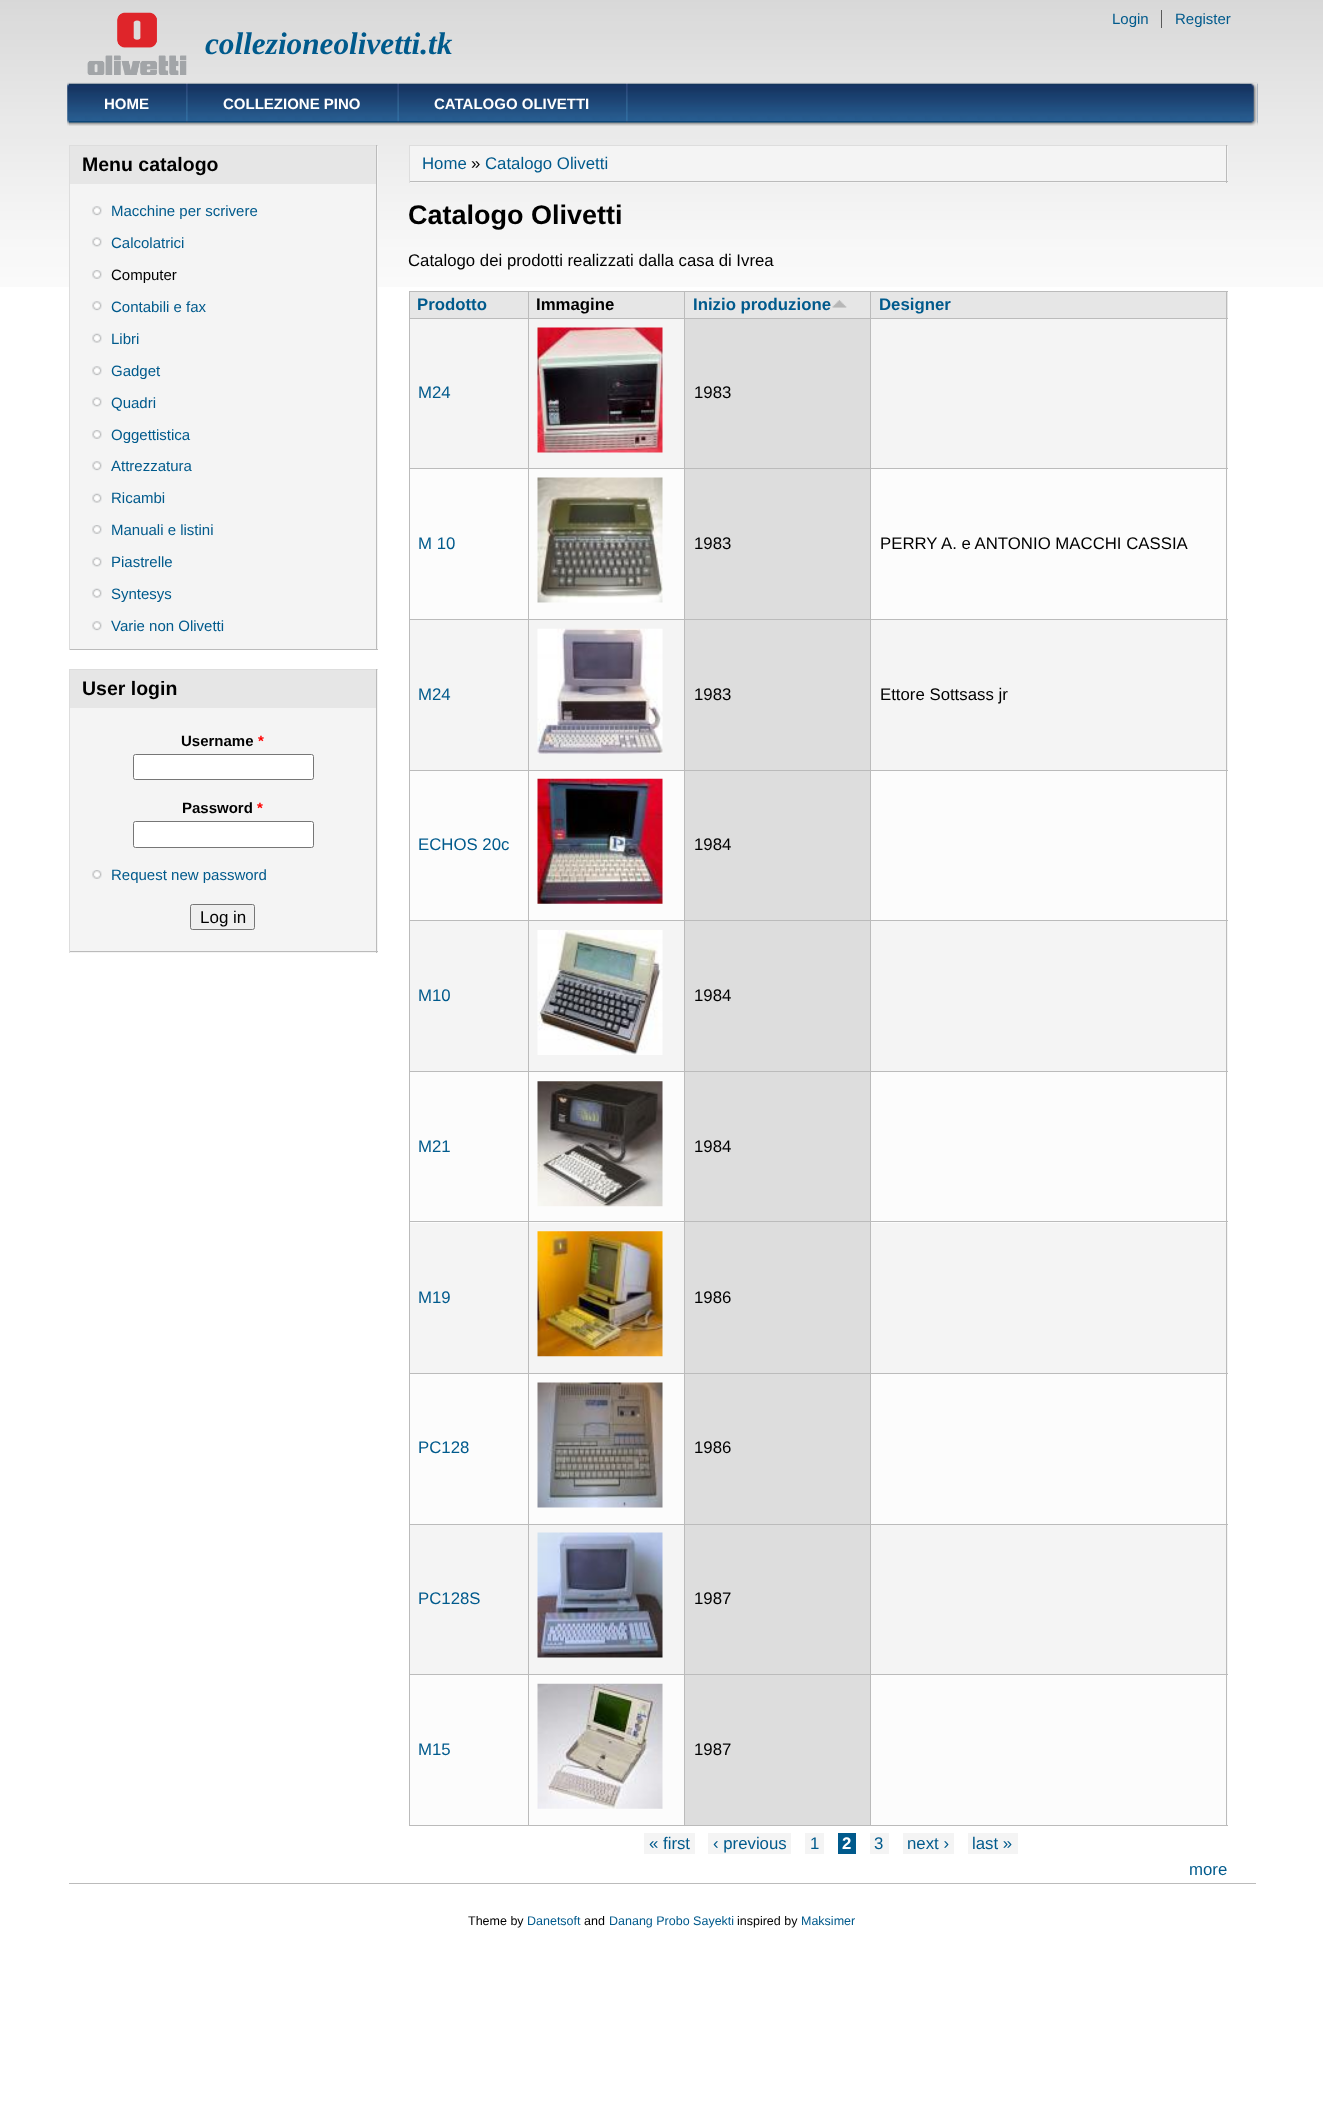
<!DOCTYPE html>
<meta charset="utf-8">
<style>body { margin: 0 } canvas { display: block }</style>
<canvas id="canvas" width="1323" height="2111"></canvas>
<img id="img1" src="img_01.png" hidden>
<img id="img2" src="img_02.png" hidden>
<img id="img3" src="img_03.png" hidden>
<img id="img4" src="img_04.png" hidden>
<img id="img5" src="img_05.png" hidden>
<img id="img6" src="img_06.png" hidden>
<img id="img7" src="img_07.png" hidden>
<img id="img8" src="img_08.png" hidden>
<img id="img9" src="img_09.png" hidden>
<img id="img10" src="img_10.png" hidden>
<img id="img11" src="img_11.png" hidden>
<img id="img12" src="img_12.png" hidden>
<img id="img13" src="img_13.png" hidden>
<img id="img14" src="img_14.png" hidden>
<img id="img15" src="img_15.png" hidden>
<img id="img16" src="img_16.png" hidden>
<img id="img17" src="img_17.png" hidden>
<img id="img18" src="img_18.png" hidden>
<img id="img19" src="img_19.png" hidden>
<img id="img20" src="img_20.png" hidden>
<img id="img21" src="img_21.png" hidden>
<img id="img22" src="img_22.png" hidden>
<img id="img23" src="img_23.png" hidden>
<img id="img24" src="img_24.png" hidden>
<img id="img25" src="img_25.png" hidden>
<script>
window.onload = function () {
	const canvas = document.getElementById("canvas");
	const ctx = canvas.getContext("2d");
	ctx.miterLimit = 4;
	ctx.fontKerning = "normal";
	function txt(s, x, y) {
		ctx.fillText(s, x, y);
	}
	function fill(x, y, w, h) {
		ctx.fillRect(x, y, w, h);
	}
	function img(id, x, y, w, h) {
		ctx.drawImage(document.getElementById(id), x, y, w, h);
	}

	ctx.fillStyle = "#FFFFFF";
	fill(0, 0, 1323, 2111);
	img("img1", 0, 0, 1323, 287);
	img("img2", 87, 12, 100, 63);
	ctx.fillStyle = "#5A5A5A";
	fill(1161, 10, 1, 18);
	img("img3", 67, 82, 1191, 44);
	img("img4", 67, 83, 2, 43);
	img("img5", 68, 83, 1, 42);
	img("img6", 186, 83, 2, 40);
	img("img7", 397, 83, 2, 40);
	img("img8", 626, 83, 2, 40);
	img("img9", 1240, 83, 18, 43);
	ctx.fillStyle = "#F4F4F4";
	fill(70, 146, 308, 503);
	ctx.fillStyle = "#DDDDDD";
	fill(69, 145, 309, 1);
	ctx.fillStyle = "#BBBBBB";
	fill(376, 145, 1, 505);
	fill(69, 649, 309, 1);
	ctx.fillStyle = "#DDDDDD";
	fill(69, 145, 1, 505);
	ctx.fillStyle = "#E6E6E6";
	fill(70, 146, 306, 38);
	img("img10", 92, 206, 10, 10);
	img("img11", 92, 237, 10, 10);
	img("img12", 92, 270, 10, 9);
	img("img10", 92, 301, 10, 10);
	img("img13", 92, 333, 10, 10);
	img("img10", 92, 366, 10, 10);
	img("img11", 92, 397, 10, 10);
	img("img12", 92, 430, 10, 9);
	img("img10", 92, 461, 10, 10);
	img("img13", 92, 493, 10, 10);
	img("img12", 92, 525, 10, 9);
	img("img11", 92, 557, 10, 10);
	img("img14", 92, 588, 10, 10);
	img("img10", 92, 621, 10, 10);
	ctx.fillStyle = "#F4F4F4";
	fill(70, 670, 308, 283);
	ctx.fillStyle = "#DDDDDD";
	fill(69, 669, 309, 1);
	ctx.fillStyle = "#BBBBBB";
	fill(376, 669, 1, 284);
	fill(69, 951, 309, 1);
	ctx.fillStyle = "#DDDDDD";
	fill(69, 669, 1, 284);
	ctx.fillStyle = "#E6E6E6";
	fill(70, 670, 306, 38);
	ctx.fillStyle = "#FFFFFF";
	ctx.beginPath();
	ctx.roundRect(133.5, 754.5, 180, 25, 2);
	ctx.fill();
	ctx.strokeStyle = "#767676";
	ctx.stroke();
	ctx.beginPath();
	ctx.roundRect(133.5, 821.5, 180, 26, 2);
	ctx.fill();
	ctx.stroke();
	img("img12", 92, 870, 10, 9);
	ctx.fillStyle = "#EFEFEF";
	ctx.beginPath();
	ctx.roundRect(190.5, 904.5, 64, 25, 2);
	ctx.fill();
	ctx.stroke();
	ctx.fillStyle = "#F4F4F4";
	fill(410, 146, 818, 37);
	ctx.fillStyle = "#DDDDDD";
	fill(409, 145, 819, 1);
	ctx.fillStyle = "#BBBBBB";
	fill(1226, 145, 1, 38);
	fill(409, 181, 819, 1);
	ctx.fillStyle = "#DDDDDD";
	fill(409, 145, 1, 38);
	ctx.fillStyle = "#E6E6E6";
	fill(410, 292, 118, 26);
	ctx.fillStyle = "#BBBBBB";
	fill(870, 291, 358, 1);
	fill(870, 318, 358, 1);
	ctx.fillStyle = "#F4F4F4";
	fill(410, 319, 818, 149);
	ctx.fillStyle = "#BBBBBB";
	fill(870, 468, 358, 1);
	ctx.fillStyle = "#FCFCFC";
	fill(410, 469, 818, 150);
	ctx.fillStyle = "#BBBBBB";
	fill(870, 619, 358, 1);
	ctx.fillStyle = "#F4F4F4";
	fill(410, 620, 818, 150);
	ctx.fillStyle = "#BBBBBB";
	fill(870, 770, 358, 1);
	ctx.fillStyle = "#FCFCFC";
	fill(410, 771, 818, 149);
	ctx.fillStyle = "#BBBBBB";
	fill(870, 920, 358, 1);
	ctx.fillStyle = "#F4F4F4";
	fill(410, 921, 818, 150);
	ctx.fillStyle = "#FCFCFC";
	fill(410, 1072, 818, 151);
	ctx.fillStyle = "#BBBBBB";
	fill(870, 1071, 358, 1);
	ctx.fillStyle = "#DDDDDD";
	fill(685, 1072, 185, 151);
	ctx.fillStyle = "#BBBBBB";
	fill(870, 1221, 358, 1);
	ctx.fillStyle = "#F4F4F4";
	fill(410, 1223, 818, 150);
	ctx.fillStyle = "#BBBBBB";
	fill(870, 1373, 358, 1);
	ctx.fillStyle = "#FCFCFC";
	fill(410, 1374, 818, 150);
	ctx.fillStyle = "#BBBBBB";
	fill(870, 1524, 358, 1);
	ctx.fillStyle = "#F4F4F4";
	fill(410, 1525, 818, 149);
	ctx.fillStyle = "#BBBBBB";
	fill(870, 1674, 358, 1);
	ctx.fillStyle = "#FCFCFC";
	fill(410, 1675, 818, 150);
	ctx.fillStyle = "#BBBBBB";
	fill(1226, 1674, 1, 152);
	fill(870, 1825, 358, 1);
	fill(870, 1674, 1, 152);
	fill(684, 1674, 187, 1);
	fill(870, 1524, 1, 151);
	fill(684, 1524, 187, 1);
	fill(870, 1373, 1, 152);
	fill(684, 1373, 187, 1);
	fill(870, 1221, 1, 153);
	fill(684, 1221, 187, 1);
	fill(870, 1071, 1, 152);
	fill(684, 1071, 187, 1);
	fill(870, 920, 1, 153);
	fill(684, 920, 187, 1);
	fill(870, 770, 1, 151);
	fill(684, 770, 187, 1);
	fill(870, 619, 1, 152);
	fill(684, 619, 187, 1);
	fill(870, 468, 1, 152);
	fill(684, 468, 187, 1);
	fill(870, 318, 1, 151);
	fill(684, 318, 187, 1);
	fill(870, 291, 1, 28);
	fill(684, 291, 187, 1);
	fill(684, 1825, 187, 1);
	fill(684, 1674, 1, 152);
	fill(528, 1674, 157, 1);
	fill(684, 1524, 1, 151);
	fill(528, 1524, 157, 1);
	fill(684, 1373, 1, 152);
	fill(528, 1373, 157, 1);
	fill(684, 1221, 1, 153);
	fill(528, 1221, 157, 1);
	fill(684, 1071, 1, 152);
	fill(528, 1071, 157, 1);
	fill(684, 920, 1, 153);
	fill(528, 920, 157, 1);
	fill(684, 770, 1, 151);
	fill(528, 770, 157, 1);
	fill(684, 619, 1, 152);
	fill(528, 619, 157, 1);
	fill(684, 468, 1, 152);
	fill(528, 468, 157, 1);
	fill(684, 318, 1, 151);
	fill(528, 318, 157, 1);
	fill(684, 291, 1, 28);
	fill(528, 291, 157, 1);
	fill(528, 1825, 157, 1);
	fill(528, 1674, 1, 152);
	fill(409, 1674, 120, 1);
	fill(528, 1524, 1, 151);
	fill(409, 1524, 120, 1);
	fill(528, 1373, 1, 152);
	fill(409, 1373, 120, 1);
	fill(528, 1221, 1, 153);
	fill(409, 1221, 120, 1);
	fill(528, 1071, 1, 152);
	fill(409, 1071, 120, 1);
	fill(528, 920, 1, 153);
	fill(409, 920, 120, 1);
	fill(528, 770, 1, 151);
	fill(409, 770, 120, 1);
	fill(528, 619, 1, 152);
	fill(409, 619, 120, 1);
	fill(528, 468, 1, 152);
	fill(409, 468, 120, 1);
	fill(528, 318, 1, 151);
	fill(409, 318, 120, 1);
	fill(528, 291, 1, 28);
	fill(409, 291, 120, 1);
	fill(409, 1825, 120, 1);
	fill(409, 1674, 1, 152);
	fill(409, 1524, 1, 151);
	fill(409, 1373, 1, 152);
	fill(409, 1221, 1, 153);
	fill(409, 1071, 1, 152);
	fill(409, 920, 1, 153);
	fill(409, 770, 1, 151);
	fill(409, 619, 1, 152);
	fill(409, 468, 1, 152);
	fill(409, 318, 1, 151);
	fill(409, 291, 1, 28);
	ctx.fillStyle = "#E6E6E6";
	fill(529, 292, 155, 26);
	fill(685, 292, 185, 26);
	img("img15", 832, 300, 15, 8);
	fill(871, 292, 357, 26);
	ctx.fillStyle = "#BBBBBB";
	fill(1226, 1524, 1, 151);
	fill(1226, 1373, 1, 152);
	fill(1226, 1221, 1, 153);
	fill(1226, 1071, 1, 152);
	fill(1226, 920, 1, 153);
	fill(1226, 770, 1, 151);
	fill(1226, 619, 1, 152);
	fill(1226, 468, 1, 152);
	fill(1226, 318, 1, 151);
	fill(1226, 291, 1, 28);
	img("img16", 537, 327, 126, 126);
	ctx.fillStyle = "#DDDDDD";
	fill(685, 319, 185, 149);
	img("img17", 537, 477, 126, 126);
	fill(685, 469, 185, 150);
	img("img18", 537, 628, 126, 126);
	fill(685, 620, 185, 150);
	img("img19", 537, 778, 126, 126);
	fill(685, 771, 185, 149);
	img("img20", 537, 930, 126, 125);
	fill(685, 921, 185, 150);
	img("img21", 537, 1081, 126, 126);
	img("img22", 537, 1231, 126, 126);
	fill(685, 1223, 185, 150);
	img("img23", 537, 1382, 126, 126);
	fill(685, 1374, 185, 150);
	img("img24", 537, 1532, 126, 126);
	fill(685, 1525, 185, 149);
	img("img25", 537, 1683, 126, 126);
	fill(685, 1675, 185, 150);
	ctx.fillStyle = "#F4F4F4";
	fill(644, 1833, 51, 21);
	fill(708, 1833, 83, 21);
	fill(805, 1833, 19, 21);
	ctx.fillStyle = "#005A8C";
	fill(838, 1833, 18, 21);
	ctx.fillStyle = "#F4F4F4";
	fill(870, 1833, 19, 21);
	fill(903, 1833, 51, 21);
	fill(968, 1833, 50, 21);
	ctx.fillStyle = "#BBBBBB";
	fill(69, 1883, 1187, 1);
	ctx.font = "15px Liberation Sans";
	ctx.fillStyle = "#005A8C";
	txt("Login", 1112, 24);
	txt("Register", 1175, 24);
	ctx.font = "italic bold 31.25px Liberation Serif";
	txt("collezioneolivetti.tk", 205, 54);
	ctx.font = "bold 15px Liberation Sans";
	ctx.fillStyle = "#FFFFFF";
	txt("HOME", 104, 109);
	txt("COLLEZIONE PINO", 223, 109);
	txt("CATALOGO OLIVETTI", 434, 109);
	ctx.font = "bold 19.5px Liberation Sans";
	ctx.fillStyle = "#000000";
	txt("Menu catalogo", 82, 171);
	ctx.font = "15px Liberation Sans";
	ctx.fillStyle = "#005A8C";
	txt("Macchine per scrivere", 111, 216);
	txt("Calcolatrici", 111, 248);
	ctx.fillStyle = "#000000";
	txt("Computer", 111, 280);
	ctx.fillStyle = "#005A8C";
	txt("Contabili e fax", 111, 312);
	txt("Libri", 111, 344);
	txt("Gadget", 111, 376);
	txt("Quadri", 111, 408);
	txt("Oggettistica", 111, 440);
	txt("Attrezzatura", 111, 471);
	txt("Ricambi", 111, 503);
	txt("Manuali e listini", 111, 535);
	txt("Piastrelle", 111, 567);
	txt("Syntesys", 111, 599);
	txt("Varie non Olivetti", 111, 631);
	ctx.font = "bold 19.5px Liberation Sans";
	ctx.fillStyle = "#000000";
	txt("User login", 82, 695);
	ctx.font = "bold 15px Liberation Sans";
	txt("Username", 181, 746);
	ctx.fillStyle = "#FF0000";
	txt("*", 258, 746);
	ctx.fillStyle = "#000000";
	txt("Password", 182, 813);
	ctx.fillStyle = "#FF0000";
	txt("*", 257, 813);
	ctx.font = "15px Liberation Sans";
	ctx.fillStyle = "#005A8C";
	txt("Request new password", 111, 880);
	ctx.font = "17px Liberation Sans";
	ctx.fillStyle = "#000000";
	txt("Log in", 200, 923);
	ctx.font = "16.8px Liberation Sans";
	ctx.fillStyle = "#005A8C";
	txt("Home", 422, 169);
	ctx.fillStyle = "#000000";
	txt("»", 471, 169);
	ctx.fillStyle = "#005A8C";
	txt("Catalogo Olivetti", 485, 169);
	ctx.font = "bold 27px Liberation Sans";
	ctx.fillStyle = "#000000";
	txt("Catalogo Olivetti", 408, 224);
	ctx.font = "16.8px Liberation Sans";
	txt("Catalogo dei prodotti realizzati dalla casa di Ivrea", 408, 266);
	ctx.font = "bold 16.8px Liberation Sans";
	ctx.fillStyle = "#005A8C";
	txt("Prodotto", 417, 310);
	ctx.fillStyle = "#000000";
	txt("Immagine", 536, 310);
	ctx.fillStyle = "#005A8C";
	txt("Inizio produzione", 693, 310);
	txt("Designer", 879, 310);
	ctx.font = "16.8px Liberation Sans";
	txt("M24", 418, 398);
	ctx.fillStyle = "#000000";
	txt("1983", 694, 398);
	ctx.fillStyle = "#005A8C";
	txt("M 10", 418, 549);
	ctx.fillStyle = "#000000";
	txt("1983", 694, 549);
	txt("PERRY A. e ANTONIO MACCHI CASSIA", 880, 549);
	ctx.fillStyle = "#005A8C";
	txt("M24", 418, 700);
	ctx.fillStyle = "#000000";
	txt("1983", 694, 700);
	txt("Ettore Sottsass jr", 880, 700);
	ctx.fillStyle = "#005A8C";
	txt("ECHOS 20c", 418, 850);
	ctx.fillStyle = "#000000";
	txt("1984", 694, 850);
	ctx.fillStyle = "#005A8C";
	txt("M10", 418, 1001);
	ctx.fillStyle = "#000000";
	txt("1984", 694, 1001);
	ctx.fillStyle = "#005A8C";
	txt("M21", 418, 1152);
	ctx.fillStyle = "#000000";
	txt("1984", 694, 1152);
	ctx.fillStyle = "#005A8C";
	txt("M19", 418, 1303);
	ctx.fillStyle = "#000000";
	txt("1986", 694, 1303);
	ctx.fillStyle = "#005A8C";
	txt("PC128", 418, 1453);
	ctx.fillStyle = "#000000";
	txt("1986", 694, 1453);
	ctx.fillStyle = "#005A8C";
	txt("PC128S", 418, 1604);
	ctx.fillStyle = "#000000";
	txt("1987", 694, 1604);
	ctx.fillStyle = "#005A8C";
	txt("M15", 418, 1755);
	ctx.fillStyle = "#000000";
	txt("1987", 694, 1755);
	ctx.fillStyle = "#005A8C";
	txt("« first", 649, 1849);
	txt("‹ previous", 713, 1849);
	txt("1", 810, 1849);
	ctx.font = "bold 16.8px Liberation Sans";
	ctx.fillStyle = "#FFFFFF";
	txt("2", 842, 1849);
	ctx.font = "16.8px Liberation Sans";
	ctx.fillStyle = "#005A8C";
	txt("3", 874, 1849);
	txt("next ›", 907, 1849);
	txt("last »", 972, 1849);
	txt("more", 1189, 1875);
	ctx.font = "12.5px Liberation Sans";
	ctx.fillStyle = "#000000";
	txt("Theme by", 468, 1925);
	ctx.fillStyle = "#005A8C";
	txt("Danetsoft", 527, 1925);
	ctx.fillStyle = "#000000";
	txt("and", 584, 1925);
	ctx.fillStyle = "#005A8C";
	txt("Danang Probo Sayekti", 609, 1925);
	ctx.fillStyle = "#000000";
	txt("inspired by", 737, 1925);
	ctx.fillStyle = "#005A8C";
	txt("Maksimer", 801, 1925);
};
</script>
